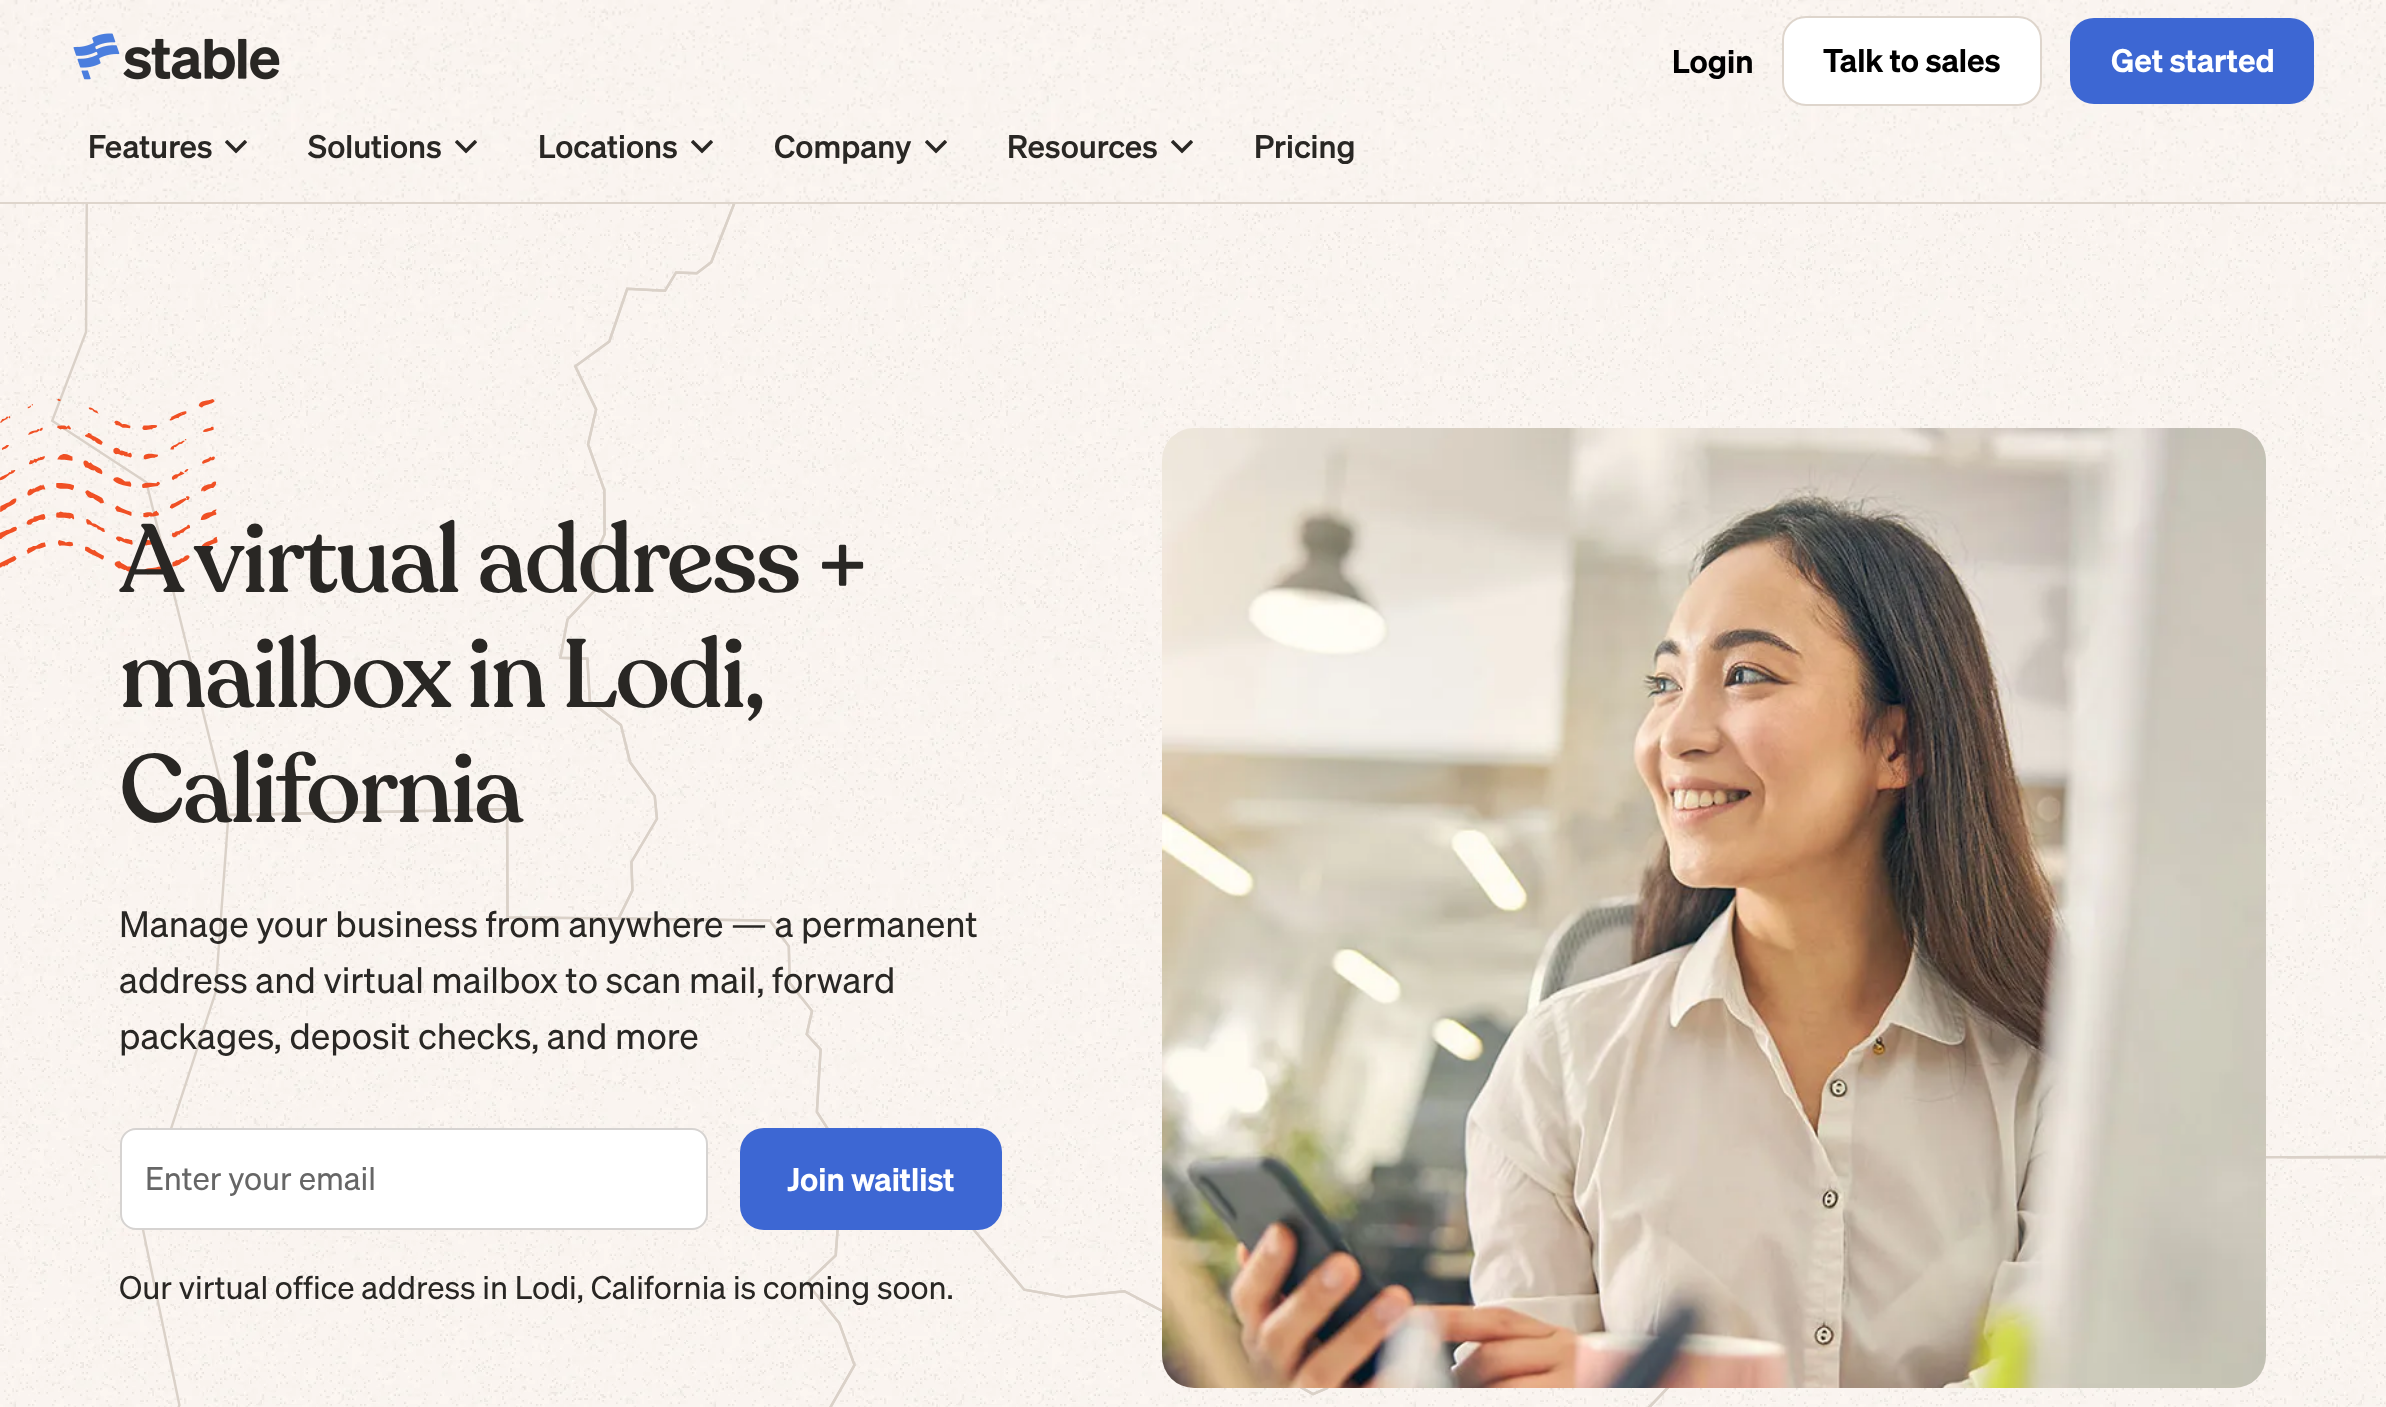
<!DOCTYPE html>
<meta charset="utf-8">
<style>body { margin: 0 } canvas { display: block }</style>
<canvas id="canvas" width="2386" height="1407"></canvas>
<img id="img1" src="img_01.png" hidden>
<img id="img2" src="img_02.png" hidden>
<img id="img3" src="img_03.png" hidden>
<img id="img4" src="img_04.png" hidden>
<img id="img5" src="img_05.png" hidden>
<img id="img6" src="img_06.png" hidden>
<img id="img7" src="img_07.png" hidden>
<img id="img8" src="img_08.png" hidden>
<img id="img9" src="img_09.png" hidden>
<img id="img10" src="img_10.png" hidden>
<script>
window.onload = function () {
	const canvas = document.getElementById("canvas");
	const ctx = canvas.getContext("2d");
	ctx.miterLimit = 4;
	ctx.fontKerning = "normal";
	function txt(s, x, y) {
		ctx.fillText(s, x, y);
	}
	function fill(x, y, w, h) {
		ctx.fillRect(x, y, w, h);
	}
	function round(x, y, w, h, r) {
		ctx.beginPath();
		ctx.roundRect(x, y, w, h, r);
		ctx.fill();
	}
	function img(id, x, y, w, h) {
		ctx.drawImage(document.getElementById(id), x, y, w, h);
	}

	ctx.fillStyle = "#FFFFFF";
	fill(0, 0, 2386, 1407);
	img("img1", 0, 0, 2386, 202);
	ctx.fillStyle = "#DED5CC";
	fill(0, 202, 2386, 2);
	ctx.fillStyle = "#FFFFFF";
	ctx.beginPath();
	ctx.roundRect(1783, 17, 258, 88, 23);
	ctx.fill();
	ctx.strokeStyle = "#DED5CC";
	ctx.lineWidth = 2;
	ctx.stroke();
	ctx.fillStyle = "#3D67D3";
	round(2070, 18, 244, 86, 24);
	img("img2", 73, 33, 207, 47);
	img("img3", 225, 140, 22, 14);
	img("img4", 455, 140, 22, 14);
	img("img5", 691, 140, 22, 14);
	img("img6", 925, 140, 22, 14);
	img("img7", 1171, 140, 22, 14);
	img("img8", 0, 204, 2386, 1203);
	img("img9", 0, 398, 218, 177);
	ctx.fillStyle = "#FFFFFF";
	ctx.beginPath();
	ctx.roundRect(121, 1129, 586, 100, 15);
	ctx.fill();
	ctx.strokeStyle = "#D6D3D1";
	ctx.stroke();
	ctx.fillStyle = "#3D67D3";
	round(740, 1128, 262, 102, 24);
	img("img10", 1162, 428, 1104, 960);
	ctx.font = "600 32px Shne";
	ctx.fillStyle = "#000000";
	txt("Login", 1672, 73);
	txt("Talk to sales", 1823, 72);
	ctx.fillStyle = "#FFFFFF";
	txt("Get started", 2111, 72);
	ctx.font = "500 32px Shne";
	ctx.fillStyle = "#292724";
	txt("Features", 88, 158);
	txt("Solutions", 308, 158);
	txt("Locations", 538, 158);
	txt("Company", 774, 158);
	txt("Resources", 1007, 158);
	txt("Pricing", 1254, 158);
	ctx.letterSpacing = "-2.4px";
	ctx.font = "500 96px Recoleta";
	txt("A virtual address +", 119, 592);
	ctx.wordSpacing = "-1px";
	txt("mailbox in Lodi,", 119, 707);
	ctx.wordSpacing = "0px";
	txt("California", 119, 822);
	ctx.letterSpacing = "0px";
	ctx.font = "36px Shne";
	txt("Manage your business from anywhere — a permanent", 119, 937);
	txt("address and virtual mailbox to scan mail, forward", 119, 993);
	txt("packages, deposit checks, and more", 119, 1049);
	ctx.font = "32px Shne";
	ctx.fillStyle = "#666666";
	txt("Enter your email", 145, 1190);
	ctx.font = "600 32px Shne";
	ctx.fillStyle = "#FFFFFF";
	txt("Join waitlist", 787, 1191);
	ctx.font = "32px Shne";
	ctx.fillStyle = "#292724";
	txt("Our virtual office address in Lodi, California is coming soon.", 119, 1299);
};
</script>
